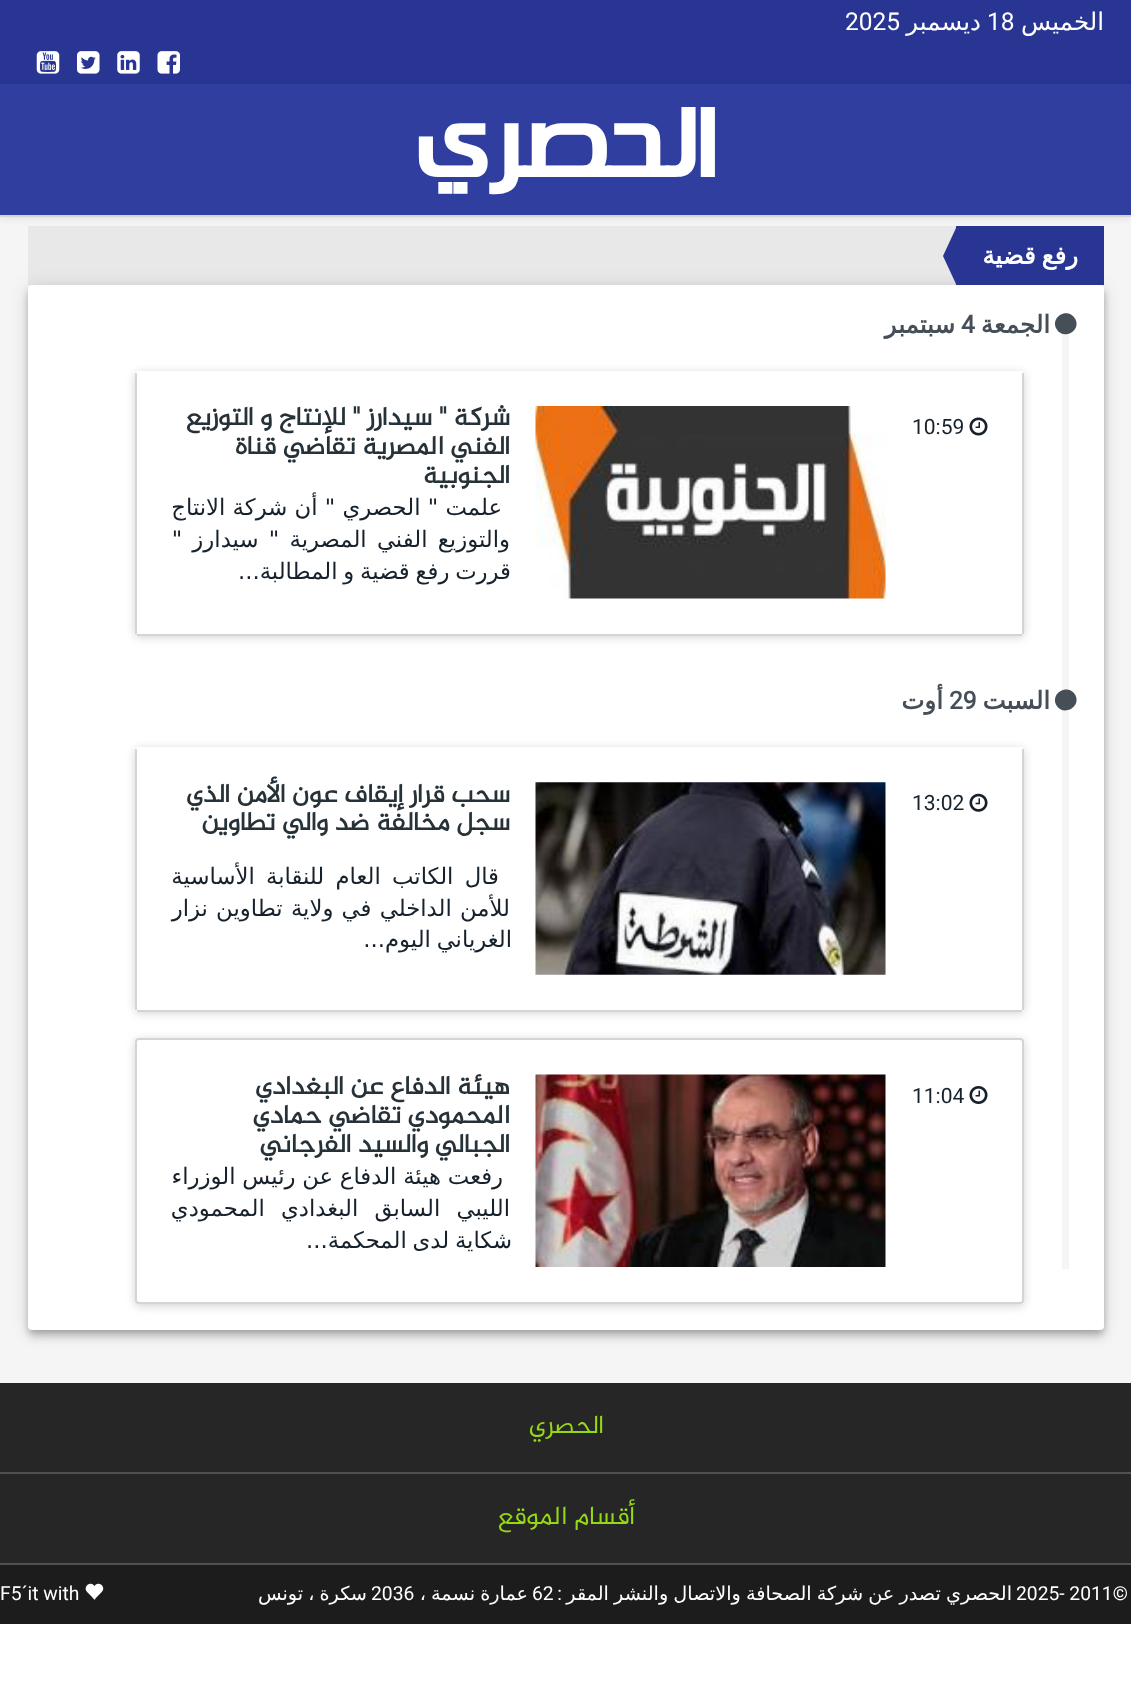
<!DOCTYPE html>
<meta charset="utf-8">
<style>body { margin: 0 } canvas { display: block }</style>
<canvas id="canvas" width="1131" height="1687"></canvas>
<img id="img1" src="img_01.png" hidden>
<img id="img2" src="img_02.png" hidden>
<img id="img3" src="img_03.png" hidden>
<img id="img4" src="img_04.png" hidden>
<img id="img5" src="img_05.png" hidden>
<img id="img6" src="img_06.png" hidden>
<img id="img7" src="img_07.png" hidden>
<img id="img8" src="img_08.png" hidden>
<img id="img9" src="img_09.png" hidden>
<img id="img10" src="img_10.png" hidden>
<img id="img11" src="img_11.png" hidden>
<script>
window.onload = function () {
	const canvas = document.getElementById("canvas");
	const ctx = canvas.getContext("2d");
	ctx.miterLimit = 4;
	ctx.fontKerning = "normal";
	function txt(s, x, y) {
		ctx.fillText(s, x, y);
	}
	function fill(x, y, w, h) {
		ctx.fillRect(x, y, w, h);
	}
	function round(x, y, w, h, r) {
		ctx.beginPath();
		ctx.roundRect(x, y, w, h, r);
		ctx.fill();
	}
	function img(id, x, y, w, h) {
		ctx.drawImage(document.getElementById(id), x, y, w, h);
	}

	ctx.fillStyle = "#FFFFFF";
	fill(0, 0, 1131, 1687);
	ctx.fillStyle = "#F5F5F5";
	fill(0, 217, 1131, 1166);
	ctx.fillStyle = "#283593";
	fill(0, 0, 1131, 84);
	img("img1", 157, 51, 23, 23);
	img("img2", 117, 51, 23, 23);
	img("img3", 77, 51, 23, 23);
	img("img4", 36, 51, 24, 23);
	ctx.fillStyle = "rgba(0, 0, 0, 0.07)";
	ctx.filter = "blur(3.5px)";
	ctx.beginPath();
	ctx.rect(0, 86, 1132, 133);
	ctx.fill();
	ctx.filter = "none";
	ctx.fillStyle = "#303F9F";
	fill(0, 84, 1131, 131);
	ctx.fillStyle = "#D4D4D4";
	fill(0, 215, 1131, 2);
	ctx.fillStyle = "#E8E8E8";
	fill(28, 226, 928, 59);
	ctx.fillStyle = "rgba(0, 0, 0, 0.2)";
	ctx.filter = "blur(3.5px)";
	ctx.beginPath();
	ctx.roundRect(30, 291, 1073, 1041, 2);
	ctx.fill();
	ctx.filter = "none";
	ctx.fillStyle = "rgba(0, 0, 0, 0.12)";
	ctx.filter = "blur(9px)";
	ctx.beginPath();
	ctx.roundRect(28, 287, 1076, 1045, 4);
	ctx.fill();
	ctx.filter = "none";
	ctx.fillStyle = "rgba(0, 0, 0, 0.14)";
	ctx.filter = "blur(4.5px)";
	ctx.beginPath();
	ctx.roundRect(28, 292, 1076, 1045, 4);
	ctx.fill();
	ctx.filter = "none";
	ctx.fillStyle = "#283593";
	fill(956, 226, 148, 59);
	ctx.beginPath();
	ctx.moveTo(956, 228);
	ctx.lineTo(956, 284);
	ctx.lineTo(943, 256);
	ctx.closePath();
	ctx.fill();
	ctx.fillStyle = "#FFFFFF";
	round(28, 285, 1076, 1045, 4);
	ctx.fillStyle = "#F5F5F6";
	fill(1062, 333, 7, 936);
	ctx.fillStyle = "#464F57";
	ctx.beginPath();
	ctx.moveTo(1075, 318.5);
	ctx.bezierCurveTo(1082, 330.5, 1063.5, 341, 1056.5, 329);
	ctx.bezierCurveTo(1049.5, 317, 1068, 306.5, 1075, 318.5);
	ctx.closePath();
	ctx.fill();
	ctx.fillStyle = "rgba(0, 0, 0, 0.18)";
	ctx.filter = "blur(5px)";
	ctx.beginPath();
	ctx.roundRect(135, 373, 889, 264, 4);
	ctx.fill();
	ctx.filter = "none";
	ctx.fillStyle = "#FFFFFF";
	round(135, 371, 889, 264, 4);
	ctx.fillStyle = "#D4D4D4";
	fill(1022, 373, 2, 261);
	fill(137, 634, 885, 2);
	fill(135, 373, 2, 261);
	img("img5", 969, 417, 19, 19);
	img("img6", 535, 406, 351, 193);
	ctx.fillStyle = "#464F57";
	ctx.beginPath();
	ctx.moveTo(1075, 694.5);
	ctx.bezierCurveTo(1082, 706.5, 1063.5, 717, 1056.5, 705.5);
	ctx.bezierCurveTo(1049.5, 693.5, 1068, 683, 1075, 694.5);
	ctx.closePath();
	ctx.fill();
	ctx.fillStyle = "rgba(0, 0, 0, 0.18)";
	ctx.filter = "blur(5px)";
	ctx.beginPath();
	ctx.roundRect(135, 749, 889, 264, 4);
	ctx.fill();
	ctx.filter = "none";
	ctx.fillStyle = "#FFFFFF";
	round(135, 747, 889, 265, 4);
	ctx.fillStyle = "#D4D4D4";
	fill(1022, 749, 2, 261);
	fill(137, 1010, 885, 2);
	fill(135, 749, 2, 261);
	img("img7", 969, 793, 19, 19);
	img("img8", 535, 782, 351, 193);
	ctx.fillStyle = "rgba(0, 0, 0, 0.18)";
	ctx.filter = "blur(5px)";
	ctx.beginPath();
	ctx.roundRect(135, 1040, 889, 266, 4);
	ctx.fill();
	ctx.filter = "none";
	ctx.fillStyle = "#FFFFFF";
	ctx.beginPath();
	ctx.roundRect(136, 1039, 887, 264, 3);
	ctx.fill();
	ctx.strokeStyle = "#D4D4D4";
	ctx.lineWidth = 2;
	ctx.stroke();
	img("img9", 969, 1086, 19, 18);
	img("img10", 535, 1074, 351, 193);
	ctx.fillStyle = "#262626";
	fill(0, 1383, 1131, 180);
	ctx.fillStyle = "#505050";
	fill(0, 1472, 1131, 2);
	fill(0, 1563, 1131, 2);
	ctx.fillStyle = "#1C1C1C";
	fill(0, 1565, 1131, 59);
	img("img11", 85, 1583, 19, 17);
	ctx.direction = "rtl";
	ctx.font = "24.5px DejaVu Sans";
	ctx.fillStyle = "#FFFFFF";
	txt("الخميس", 1104, 30);
	ctx.direction = "ltr";
	ctx.font = "24.5px Roboto";
	txt("18", 987, 30);
	ctx.direction = "rtl";
	ctx.font = "24.5px DejaVu Sans";
	txt("ديسمبر", 981, 30);
	ctx.direction = "ltr";
	ctx.font = "24.5px Roboto";
	txt("2025", 845, 30);
	ctx.direction = "rtl";
	ctx.font = "bold 96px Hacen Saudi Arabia";
	txt("الحصري", 716, 177);
	ctx.wordSpacing = "-2px";
	ctx.font = "bold 24.5px DejaVu Sans";
	txt("رفع قضية", 1078, 264);
	ctx.wordSpacing = "0px";
	ctx.fillStyle = "#464F57";
	txt("الجمعة", 1050, 333);
	ctx.direction = "ltr";
	ctx.font = "bold 24.5px Roboto";
	txt("4", 961, 333);
	ctx.direction = "rtl";
	ctx.font = "bold 24.5px DejaVu Sans";
	txt("سبتمبر", 955, 333);
	ctx.direction = "ltr";
	ctx.font = "21px Roboto";
	ctx.fillStyle = "#16212C";
	txt("10:59", 912, 434);
	ctx.direction = "rtl";
	ctx.font = "bold 26.25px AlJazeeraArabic";
	ctx.fillStyle = "#263238";
	txt("شركة \" سيدارز \" للإنتاج و التوزيع", 510, 425);
	txt("الفني المصرية تقاضي قناة", 510, 454);
	txt("الجنوبية", 510, 483);
	ctx.font = "22.75px DejaVu Sans";
	ctx.fillStyle = "#16212C";
	txt("علمت \" الحصري \" أن شركة الانتاج", 502, 515);
	ctx.wordSpacing = "3px";
	txt("والتوزيع الفني المصرية \" سيدارز \"", 510, 547);
	ctx.wordSpacing = "-1.5px";
	txt("قررت رفع قضية و المطالبة...", 511, 579);
	ctx.wordSpacing = "0px";
	ctx.font = "bold 24.5px DejaVu Sans";
	ctx.fillStyle = "#464F57";
	txt("السبت", 1050, 709);
	ctx.direction = "ltr";
	ctx.font = "bold 24.5px Roboto";
	txt("29", 949, 709);
	ctx.direction = "rtl";
	ctx.font = "bold 24.5px DejaVu Sans";
	txt("أوت", 943, 709);
	ctx.direction = "ltr";
	ctx.font = "21px Roboto";
	ctx.fillStyle = "#16212C";
	txt("13:02", 912, 810);
	ctx.direction = "rtl";
	ctx.font = "bold 26.25px AlJazeeraArabic";
	ctx.fillStyle = "#263238";
	txt("سحب قرار إيقاف عون الأمن الذي", 510, 802);
	txt("سجل مخالفة ضد والي تطاوين", 510, 830);
	ctx.wordSpacing = "4px";
	ctx.font = "22.75px DejaVu Sans";
	ctx.fillStyle = "#16212C";
	txt("قال الكاتب العام للنقابة الأساسية", 499, 884);
	ctx.wordSpacing = "1px";
	txt("للأمن الداخلي في ولاية تطاوين نزار", 510, 916);
	ctx.wordSpacing = "-1.5px";
	txt("الغرياني اليوم...", 512, 947);
	ctx.wordSpacing = "0px";
	ctx.direction = "ltr";
	ctx.font = "21px Roboto";
	txt("11:04", 912, 1103);
	ctx.direction = "rtl";
	ctx.font = "bold 26.25px AlJazeeraArabic";
	ctx.fillStyle = "#263238";
	txt("هيئة الدفاع عن البغدادي", 510, 1094);
	txt("المحمودي تقاضي حمادي", 510, 1123);
	txt("الجبالي والسيد الفرجاني", 510, 1152);
	ctx.wordSpacing = "-0.5px";
	ctx.font = "22.75px DejaVu Sans";
	ctx.fillStyle = "#16212C";
	txt("رفعت هيئة الدفاع عن رئيس الوزراء", 503, 1184);
	ctx.wordSpacing = "9px";
	txt("الليبي السابق البغدادي المحمودي", 510, 1216);
	ctx.wordSpacing = "-1.5px";
	txt("شكاية لدى المحكمة...", 512, 1248);
	ctx.wordSpacing = "0px";
	ctx.font = "26.25px AlJazeeraArabic";
	ctx.fillStyle = "#95D814";
	txt("الحصري", 604, 1433);
	txt("أقسام الموقع", 635, 1524);
	ctx.wordSpacing = "-1px";
	ctx.font = "19.25px DejaVu Sans";
	ctx.fillStyle = "#FFFFFF";
	txt("الحصري تصدر عن شركة الصحافة والاتصال والنشر المقر", 1012, 1600);
	ctx.wordSpacing = "0px";
	ctx.direction = "ltr";
	ctx.font = "19.25px Roboto";
	txt("2025- 2011©", 1016, 1600);
	ctx.direction = "rtl";
	txt(":", 562, 1600);
	ctx.direction = "ltr";
	txt("62", 532, 1600);
	ctx.wordSpacing = "-1px";
	ctx.direction = "rtl";
	ctx.font = "19.25px DejaVu Sans";
	txt("عمارة نسمة ،", 528, 1600);
	ctx.wordSpacing = "0px";
	ctx.direction = "ltr";
	ctx.font = "19.25px Roboto";
	txt("2036", 371, 1600);
	ctx.wordSpacing = "-1px";
	ctx.direction = "rtl";
	ctx.font = "19.25px DejaVu Sans";
	txt("سكرة ، تونس", 367, 1600);
	ctx.wordSpacing = "0px";
	ctx.direction = "ltr";
	ctx.font = "19.25px Roboto";
	txt("F5´it with", 0, 1600);
};
</script>
